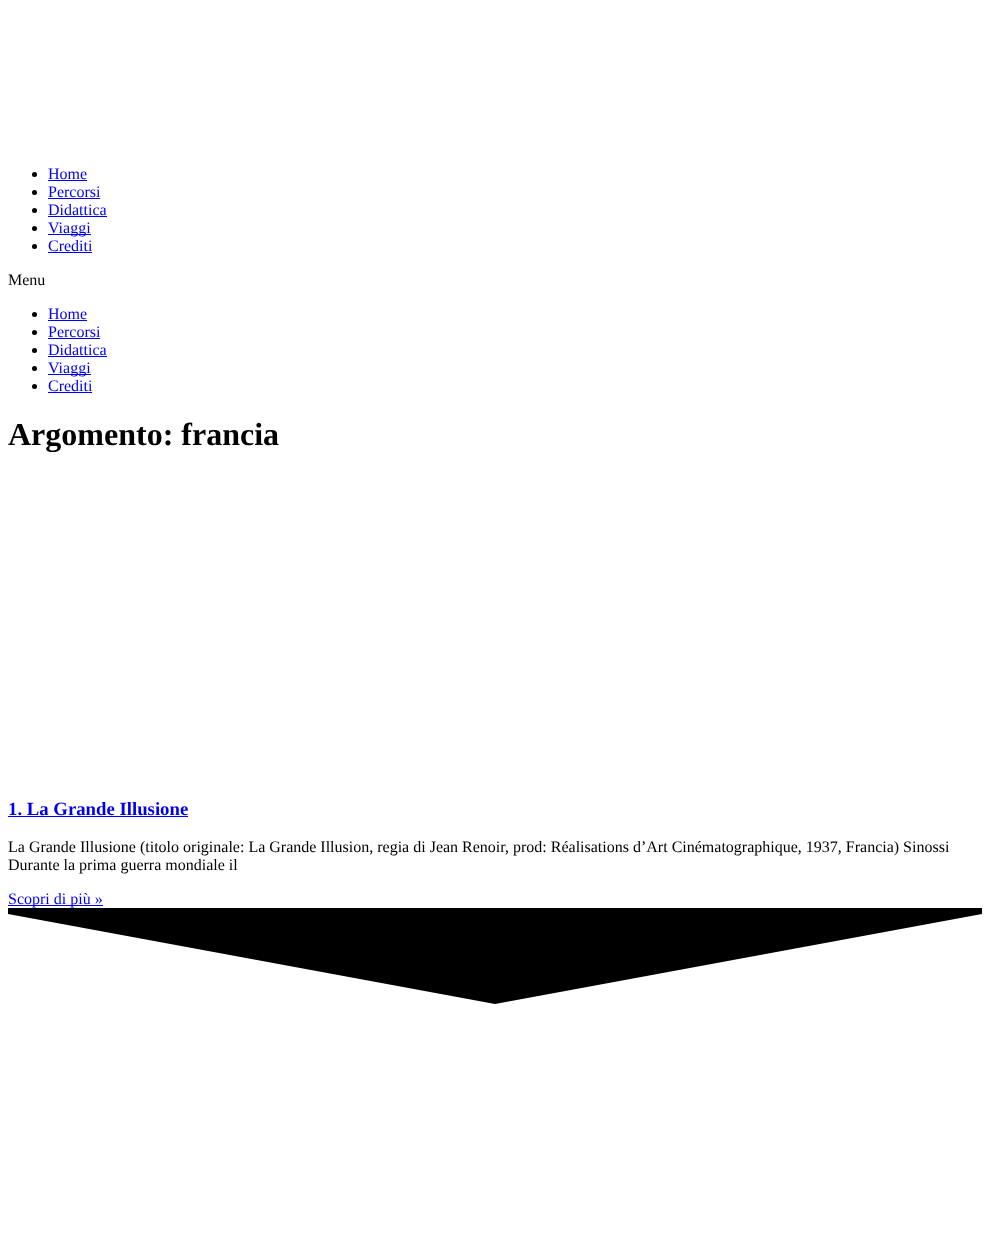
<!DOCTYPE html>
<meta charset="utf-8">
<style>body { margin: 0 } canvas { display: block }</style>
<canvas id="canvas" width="990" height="1258"></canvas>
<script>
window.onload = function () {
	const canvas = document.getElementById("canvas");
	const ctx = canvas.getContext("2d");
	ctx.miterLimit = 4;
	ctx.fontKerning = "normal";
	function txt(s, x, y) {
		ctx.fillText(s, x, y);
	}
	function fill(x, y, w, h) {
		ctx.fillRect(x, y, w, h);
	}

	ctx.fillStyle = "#FFFFFF";
	fill(0, 0, 990, 1258);
	ctx.fillStyle = "#000000";
	ctx.beginPath();
	ctx.arc(34.5, 174.5, 2.5, 0, Math.PI * 2);
	ctx.fill();
	ctx.fillStyle = "#0000EE";
	fill(48, 180, 39, 1);
	ctx.fillStyle = "#000000";
	ctx.beginPath();
	ctx.arc(34.5, 192.5, 2.5, 0, Math.PI * 2);
	ctx.fill();
	ctx.fillStyle = "#0000EE";
	fill(48, 198, 52, 1);
	ctx.fillStyle = "#000000";
	ctx.beginPath();
	ctx.arc(34.5, 210.5, 2.5, 0, Math.PI * 2);
	ctx.fill();
	ctx.fillStyle = "#0000EE";
	fill(48, 216, 59, 1);
	ctx.fillStyle = "#000000";
	ctx.beginPath();
	ctx.arc(34.5, 228.5, 2.5, 0, Math.PI * 2);
	ctx.fill();
	ctx.fillStyle = "#0000EE";
	fill(48, 234, 43, 1);
	ctx.fillStyle = "#000000";
	ctx.beginPath();
	ctx.arc(34.5, 246.5, 2.5, 0, Math.PI * 2);
	ctx.fill();
	ctx.fillStyle = "#0000EE";
	fill(48, 252, 44, 1);
	ctx.fillStyle = "#000000";
	ctx.beginPath();
	ctx.arc(34.5, 314.5, 2.5, 0, Math.PI * 2);
	ctx.fill();
	ctx.fillStyle = "#0000EE";
	fill(48, 320, 39, 1);
	ctx.fillStyle = "#000000";
	ctx.beginPath();
	ctx.arc(34.5, 332.5, 2.5, 0, Math.PI * 2);
	ctx.fill();
	ctx.fillStyle = "#0000EE";
	fill(48, 338, 52, 1);
	ctx.fillStyle = "#000000";
	ctx.beginPath();
	ctx.arc(34.5, 350.5, 2.5, 0, Math.PI * 2);
	ctx.fill();
	ctx.fillStyle = "#0000EE";
	fill(48, 356, 59, 1);
	ctx.fillStyle = "#000000";
	ctx.beginPath();
	ctx.arc(34.5, 368.5, 2.5, 0, Math.PI * 2);
	ctx.fill();
	ctx.fillStyle = "#0000EE";
	fill(48, 374, 43, 1);
	ctx.fillStyle = "#000000";
	ctx.beginPath();
	ctx.arc(34.5, 386.5, 2.5, 0, Math.PI * 2);
	ctx.fill();
	ctx.fillStyle = "#0000EE";
	fill(48, 392, 44, 1);
	fill(8, 816, 180, 1);
	fill(8, 905, 95, 1);
	ctx.fillStyle = "#000000";
	ctx.beginPath();
	ctx.moveTo(495, 1004);
	ctx.lineTo(8, 914);
	ctx.lineTo(8, 908);
	ctx.lineTo(982, 908);
	ctx.lineTo(982, 914);
	ctx.closePath();
	ctx.fill();
	ctx.font = "16px Liberation Serif";
	ctx.fillStyle = "#0000EE";
	txt("Home", 48, 179);
	txt("Percorsi", 48, 197);
	txt("Didattica", 48, 215);
	txt("Viaggi", 48, 233);
	txt("Crediti", 48, 251);
	ctx.fillStyle = "#000000";
	txt("Menu", 8, 285);
	ctx.fillStyle = "#0000EE";
	txt("Home", 48, 319);
	txt("Percorsi", 48, 337);
	txt("Didattica", 48, 355);
	txt("Viaggi", 48, 373);
	txt("Crediti", 48, 391);
	ctx.font = "bold 32px Liberation Serif";
	ctx.fillStyle = "#000000";
	txt("Argomento: francia", 8, 445);
	ctx.font = "bold 18.75px Liberation Serif";
	ctx.fillStyle = "#0000EE";
	txt("1. La Grande Illusione", 8, 815);
	ctx.font = "16px Liberation Serif";
	ctx.fillStyle = "#000000";
	txt("La Grande Illusione (titolo originale: La Grande Illusion, regia di Jean Renoir, prod: Réalisations d’Art Cinématographique, 1937, Francia) Sinossi", 8, 852);
	txt("Durante la prima guerra mondiale il", 8, 870);
	ctx.fillStyle = "#0000EE";
	txt("Scopri di più »", 8, 904);
};
</script>
